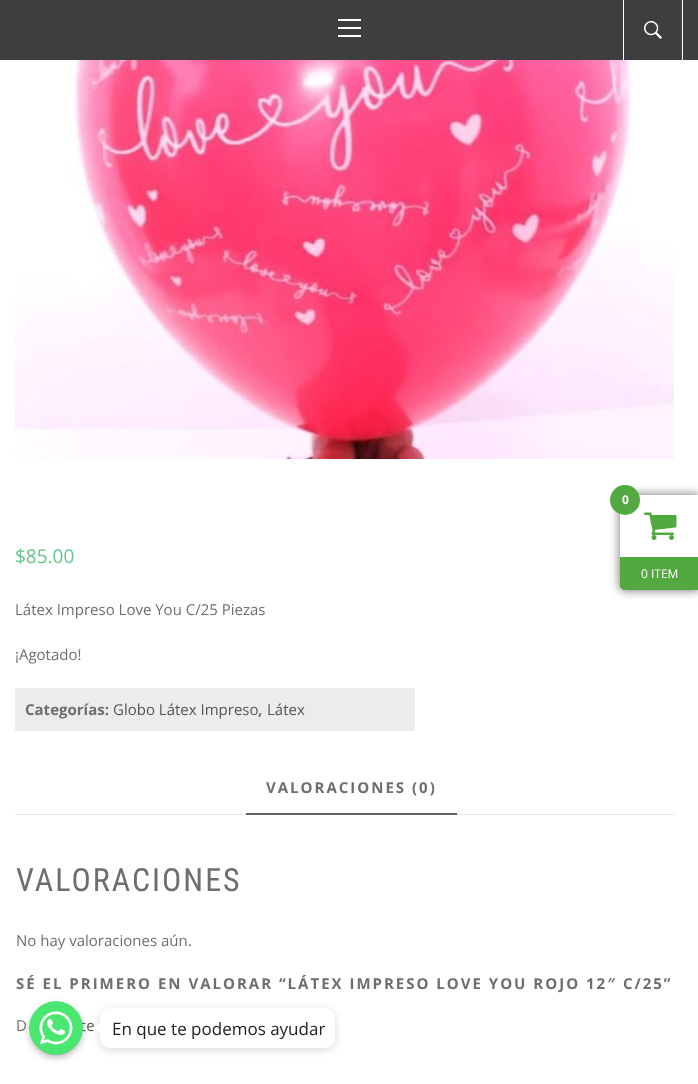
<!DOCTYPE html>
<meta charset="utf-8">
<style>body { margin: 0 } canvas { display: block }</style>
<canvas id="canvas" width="698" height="1084"></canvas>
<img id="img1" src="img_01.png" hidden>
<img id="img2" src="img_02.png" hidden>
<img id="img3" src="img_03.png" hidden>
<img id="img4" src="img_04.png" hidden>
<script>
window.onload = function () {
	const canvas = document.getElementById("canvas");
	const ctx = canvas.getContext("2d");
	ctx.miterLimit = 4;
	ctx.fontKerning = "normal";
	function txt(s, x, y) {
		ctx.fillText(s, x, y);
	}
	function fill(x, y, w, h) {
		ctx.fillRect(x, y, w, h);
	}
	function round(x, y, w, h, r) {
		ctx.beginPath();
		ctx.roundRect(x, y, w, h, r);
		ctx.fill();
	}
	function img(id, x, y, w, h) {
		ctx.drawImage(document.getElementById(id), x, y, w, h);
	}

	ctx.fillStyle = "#FFFFFF";
	fill(0, 0, 698, 1084);
	ctx.fillStyle = "#858080";
	ctx.filter = "blur(5px)";
	ctx.beginPath();
	ctx.roundRect(619, 494, 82, 97, 6);
	ctx.fill();
	ctx.filter = "none";
	ctx.fillStyle = "#FFFFFF";
	fill(620, 495, 78, 62);
	ctx.fillStyle = "#52A93F";
	ctx.beginPath();
	ctx.arc(625, 500, 15, 0, Math.PI * 2);
	ctx.fill();
	img("img1", 644, 512, 33, 28);
	ctx.beginPath();
	ctx.moveTo(620, 557);
	ctx.lineTo(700, 557);
	ctx.lineTo(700, 590);
	ctx.lineTo(625, 590);
	ctx.bezierCurveTo(622, 590, 620, 588, 620, 585);
	ctx.closePath();
	ctx.fill();
	ctx.fillStyle = "#3E3E3E";
	fill(0, 0, 698, 60);
	ctx.fillStyle = "#FFFFFF";
	fill(338, 27, 23, 2);
	fill(338, 19, 23, 2);
	fill(338, 35, 23, 2);
	ctx.fillStyle = "#4B4B4B";
	fill(681, 0, 1, 60);
	ctx.fillStyle = "#FFFFFF";
	fill(682, 0, 1, 60);
	fill(623, 0, 1, 60);
	img("img2", 644, 21, 18, 18);
	img("img3", 15, 60, 659, 399);
	ctx.fillStyle = "#ECECEC";
	fill(15, 688, 400, 43);
	ctx.fillStyle = "#E6E6E6";
	fill(15, 814, 659, 1);
	ctx.fillStyle = "#FFFFFF";
	ctx.beginPath();
	ctx.roundRect(246, 761, 211, 54, [4, 4, 0, 0]);
	ctx.fill();
	ctx.fillStyle = "#606060";
	fill(246, 813, 211, 2);
	ctx.fillStyle = "rgba(0, 0, 0, 0.25)";
	ctx.filter = "blur(3px)";
	ctx.beginPath();
	ctx.roundRect(29, 1004, 54, 54, 27);
	ctx.fill();
	ctx.filter = "none";
	ctx.save();
	ctx.beginPath();
	ctx.roundRect(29, 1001, 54, 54, 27);
	ctx.clip();
	ctx.filter = "blur(3px)";
	ctx.beginPath();
	ctx.roundRect(29, 1004, 54, 54, 27);
	ctx.fill();
	ctx.filter = "none";
	ctx.restore();
	ctx.fillStyle = "rgba(0, 0, 0, 0.15)";
	ctx.filter = "blur(4px)";
	ctx.beginPath();
	ctx.roundRect(100, 1010, 235, 40, 10);
	ctx.fill();
	ctx.filter = "none";
	ctx.fillStyle = "#FFFFFF";
	round(100, 1008, 235, 40, 10);
	ctx.font = "bold 12px Open Sans";
	txt("0", 622, 504);
	ctx.font = "12px Open Sans";
	txt("0 ITEM", 641, 578);
	ctx.font = "19px Open Sans";
	ctx.fillStyle = "#63C58D";
	txt("$85.00", 15, 563);
	ctx.font = "15px Open Sans";
	ctx.fillStyle = "#6E6E6E";
	txt("Látex Impreso Love You C/25 Piezas", 15, 615);
	txt("¡Agotado!", 15, 660);
	ctx.font = "bold 15px Open Sans";
	txt("Categorías:", 25, 715);
	ctx.font = "15px Open Sans";
	ctx.fillStyle = "#555555";
	txt("Globo Látex Impreso", 113, 715);
	ctx.font = "bold 15px Open Sans";
	ctx.fillStyle = "#6E6E6E";
	txt(",", 258, 715);
	ctx.font = "15px Open Sans";
	ctx.fillStyle = "#555555";
	txt("Látex", 267, 715);
	ctx.letterSpacing = "2px";
	ctx.font = "bold 15px Open Sans";
	ctx.fillStyle = "#6E6E6E";
	txt("VALORACIONES (0)", 266, 793);
	ctx.font = "32px Roboto Condensed";
	txt("VALORACIONES", 16, 891);
	ctx.letterSpacing = "0px";
	ctx.font = "15px Open Sans";
	txt("No hay valoraciones aún.", 16, 946);
	ctx.letterSpacing = "2px";
	ctx.font = "bold 15px Open Sans";
	txt("SÉ EL PRIMERO EN VALORAR “LÁTEX IMPRESO LOVE YOU ROJO 12″ C/25”", 16, 989);
	ctx.letterSpacing = "0px";
	ctx.font = "15px Open Sans";
	txt("D", 16, 1031);
	ctx.fillStyle = "#555555";
	txt("ce", 79, 1031);
	img("img4", 29, 1001, 54, 54);
	ctx.fillStyle = "#FFFFFF";
	ctx.beginPath();
	ctx.moveTo(101, 1023);
	ctx.lineTo(101, 1033);
	ctx.lineTo(91, 1028);
	ctx.closePath();
	ctx.fill();
	ctx.font = "17px Open Sans";
	ctx.fillStyle = "#222222";
	txt("En que te podemos ayudar", 112, 1035);
};
</script>
